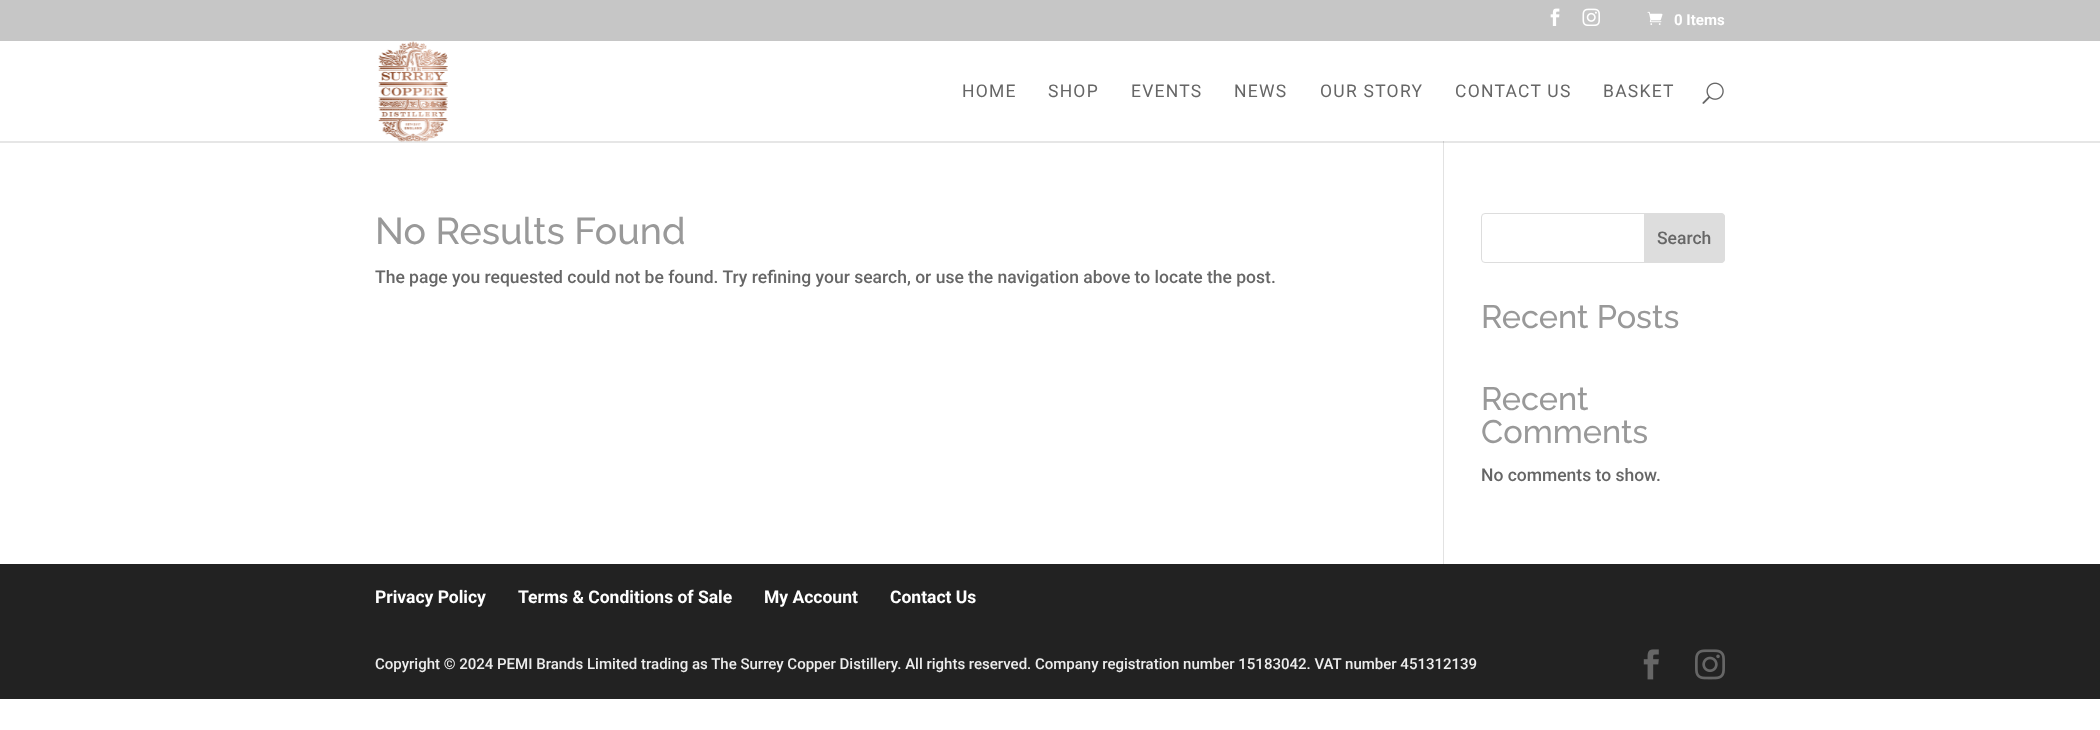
<!DOCTYPE html>
<meta charset="utf-8">
<style>body { margin: 0 } canvas { display: block }</style>
<canvas id="canvas" width="2100" height="730"></canvas>
<img id="img1" src="img_01.png" hidden>
<img id="img2" src="img_02.png" hidden>
<img id="img3" src="img_03.png" hidden>
<img id="img4" src="img_04.png" hidden>
<img id="img5" src="img_05.png" hidden>
<img id="img6" src="img_06.png" hidden>
<img id="img7" src="img_07.png" hidden>
<script>
window.onload = function () {
	const canvas = document.getElementById("canvas");
	const ctx = canvas.getContext("2d");
	ctx.miterLimit = 4;
	ctx.fontKerning = "normal";
	function txt(s, x, y) {
		ctx.fillText(s, x, y);
	}
	function fill(x, y, w, h) {
		ctx.fillRect(x, y, w, h);
	}
	function img(id, x, y, w, h) {
		ctx.drawImage(document.getElementById(id), x, y, w, h);
	}

	ctx.fillStyle = "#FFFFFF";
	fill(0, 0, 2100, 730);
	ctx.fillStyle = "#E6E6E6";
	fill(0, 141, 2100, 2);
	ctx.fillStyle = "#C6C6C6";
	fill(0, 0, 2100, 41);
	img("img1", 1550, 8, 10, 18);
	img("img2", 1582, 8, 18, 18);
	img("img3", 1647, 11, 16, 14);
	ctx.fillStyle = "#E2E2E2";
	fill(1443, 140, 1, 424);
	ctx.fillStyle = "#FFFFFF";
	fill(1443, 140, 1, 1);
	img("img4", 378, 41, 70, 101);
	img("img5", 1702, 82, 22, 22);
	ctx.fillStyle = "#CBCBCB";
	fill(1443, 141, 1, 2);
	ctx.beginPath();
	ctx.roundRect(1481.5, 213.5, 243, 49, 3.5);
	ctx.strokeStyle = "#DDDDDD";
	ctx.stroke();
	ctx.fillStyle = "#DDDDDD";
	ctx.beginPath();
	ctx.roundRect(1644.5, 213.5, 80, 49, [0, 3.5, 3.5, 0]);
	ctx.fill();
	ctx.stroke();
	ctx.fillStyle = "#222222";
	fill(0, 564, 2100, 135);
	img("img6", 1643, 649, 16, 31);
	img("img7", 1695, 649, 30, 31);
	ctx.font = "bold 15px Roboto";
	ctx.fillStyle = "#FFFFFF";
	txt("0 Items", 1674, 25);
	ctx.letterSpacing = "1.25px";
	ctx.font = "17.5px Roboto";
	ctx.fillStyle = "#666666";
	txt("HOME", 962, 97);
	txt("SHOP", 1048, 97);
	txt("EVENTS", 1131, 97);
	txt("NEWS", 1234, 97);
	txt("OUR STORY", 1320, 97);
	txt("CONTACT US", 1455, 97);
	txt("BASKET", 1603, 97);
	ctx.letterSpacing = "0px";
	ctx.font = "500 37.5px Raleway";
	ctx.fillStyle = "#999999";
	txt("No Results Found", 375, 244);
	ctx.font = "500 17.5px Roboto";
	ctx.fillStyle = "#666666";
	txt("The page you requested could not be found. Try refining your search, or use the navigation above to locate the post.", 375, 283);
	txt("Search", 1657, 244);
	ctx.font = "500 32.5px Raleway";
	ctx.fillStyle = "#999999";
	txt("Recent Posts", 1481, 328);
	txt("Recent", 1481, 410);
	txt("Comments", 1481, 443);
	ctx.font = "500 17.5px Roboto";
	ctx.fillStyle = "#666666";
	txt("No comments to show.", 1481, 481);
	ctx.font = "bold 17.5px Roboto";
	ctx.fillStyle = "#FFFFFF";
	txt("Privacy Policy", 375, 603);
	txt("Terms & Conditions of Sale", 518, 603);
	txt("My Account", 764, 603);
	txt("Contact Us", 890, 603);
	ctx.font = "500 15px Roboto";
	ctx.fillStyle = "#EDEDED";
	txt("Copyright © 2024 PEMI Brands Limited trading as The Surrey Copper Distillery. All rights reserved. Company registration number 15183042. VAT number 451312139", 375, 669);
};
</script>
